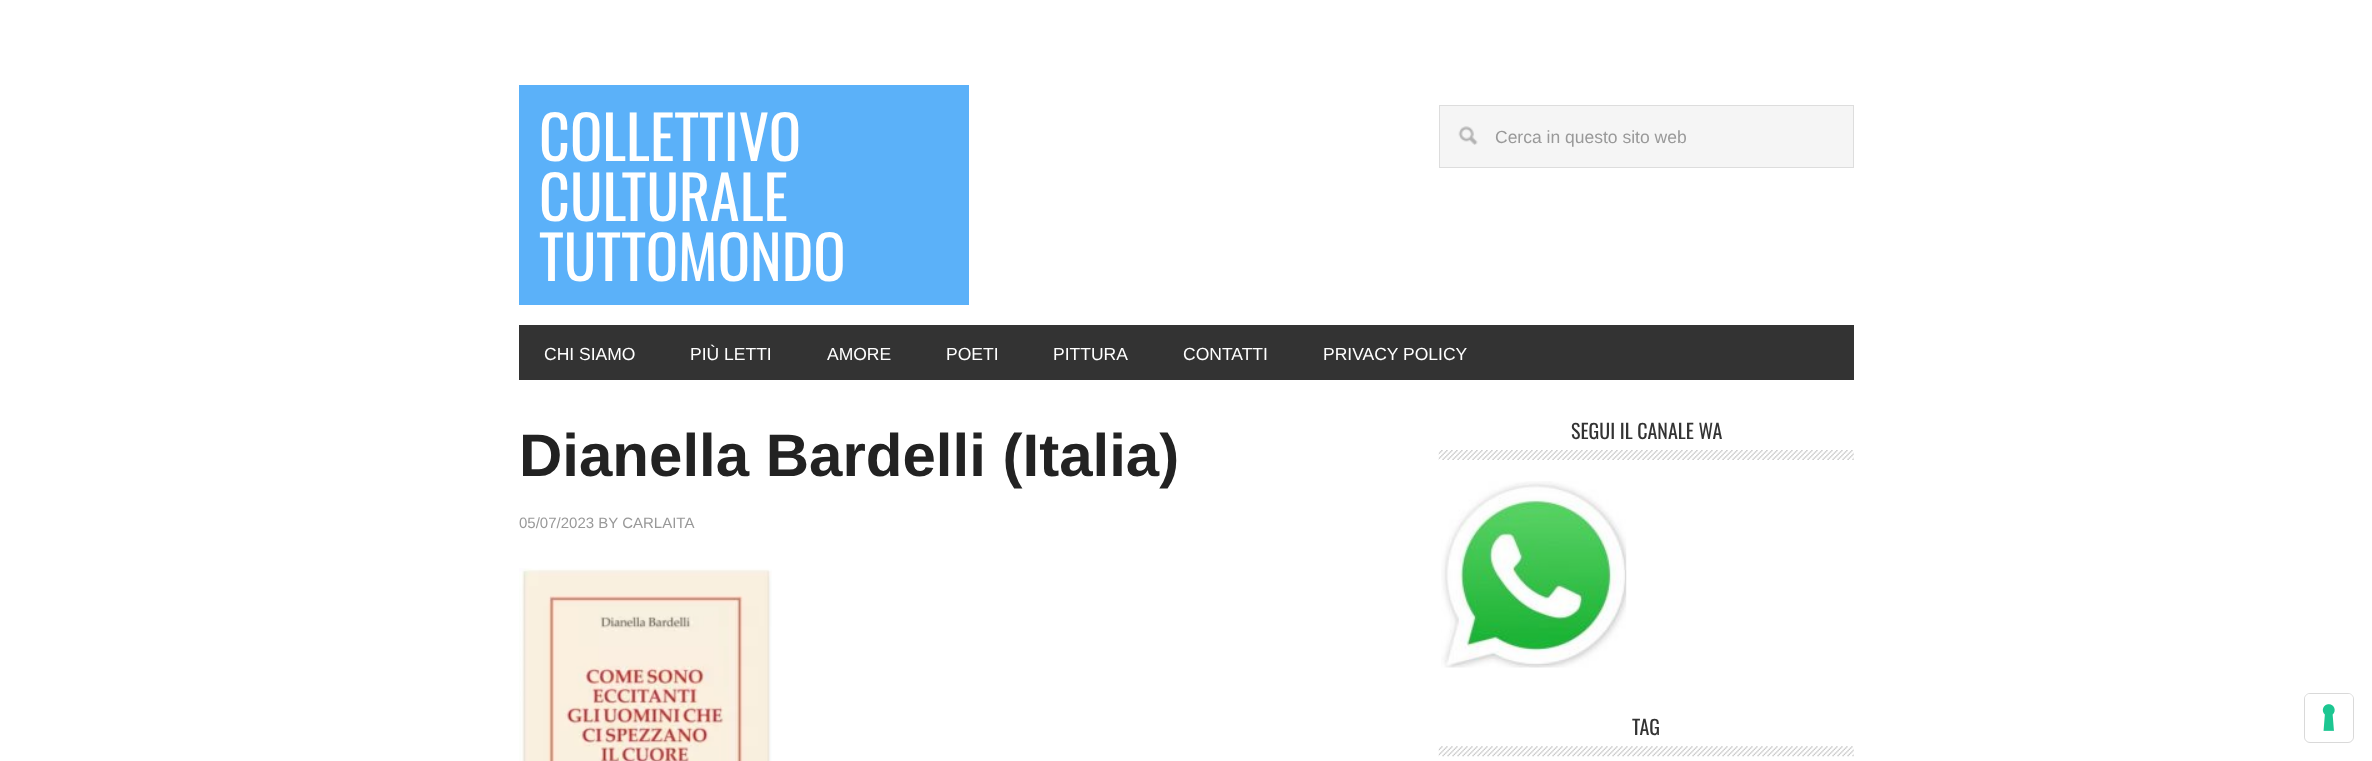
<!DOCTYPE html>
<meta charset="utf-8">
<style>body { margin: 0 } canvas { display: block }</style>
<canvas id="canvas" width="2372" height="761"></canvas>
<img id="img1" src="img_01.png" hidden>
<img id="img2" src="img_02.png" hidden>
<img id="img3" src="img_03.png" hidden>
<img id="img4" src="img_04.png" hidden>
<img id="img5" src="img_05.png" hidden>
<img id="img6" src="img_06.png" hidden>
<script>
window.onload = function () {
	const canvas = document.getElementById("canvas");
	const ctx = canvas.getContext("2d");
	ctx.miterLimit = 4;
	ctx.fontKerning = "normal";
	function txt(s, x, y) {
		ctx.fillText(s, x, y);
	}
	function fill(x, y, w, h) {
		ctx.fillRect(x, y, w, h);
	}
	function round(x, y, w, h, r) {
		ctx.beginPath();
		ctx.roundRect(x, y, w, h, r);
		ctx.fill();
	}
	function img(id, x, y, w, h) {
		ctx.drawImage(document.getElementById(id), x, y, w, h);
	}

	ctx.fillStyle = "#FFFFFF";
	fill(0, 0, 2372, 761);
	ctx.fillStyle = "#5BB1F9";
	fill(519, 85, 450, 220);
	ctx.fillStyle = "#F5F5F5";
	fill(1440, 106, 413, 61);
	img("img1", 1458, 126, 20, 19);
	ctx.strokeStyle = "#DDDDDD";
	ctx.strokeRect(1439.5, 105.5, 414, 62);
	ctx.fillStyle = "#333333";
	fill(519, 325, 1335, 55);
	img("img2", 519, 568, 253, 193);
	img("img3", 1438, 450, 416, 10);
	img("img4", 1441, 481, 186, 187);
	img("img5", 1438, 746, 416, 11);
	ctx.beginPath();
	ctx.roundRect(2304.5, 693.5, 49, 49, 5.5);
	ctx.strokeStyle = "#D9D9D9";
	ctx.stroke();
	ctx.fillStyle = "#FFFFFF";
	round(2305, 694, 48, 47, 5);
	img("img6", 2322, 704, 13, 27);
	ctx.font = "60px Oswald";
	txt("COLLETTIVO", 539, 161);
	txt("CULTURALE", 539, 221);
	txt("TUTTOMONDO", 539, 281);
	ctx.font = "17.5px Liberation Sans";
	ctx.fillStyle = "#999999";
	txt("Cerca in questo sito web", 1495, 143);
	ctx.fillStyle = "#FFFFFF";
	txt("CHI SIAMO", 544, 360);
	txt("PIÙ LETTI", 690, 360);
	txt("AMORE", 827, 360);
	txt("POETI", 946, 360);
	txt("PITTURA", 1053, 360);
	txt("CONTATTI", 1183, 360);
	txt("PRIVACY POLICY", 1323, 360);
	ctx.font = "bold 60px Liberation Sans";
	ctx.fillStyle = "#222222";
	txt("Dianella Bardelli (Italia)", 519, 476);
	ctx.font = "15px Liberation Sans";
	ctx.fillStyle = "#999999";
	txt("05/07/2023 BY CARLAITA", 519, 528);
	ctx.font = "20px Oswald";
	ctx.fillStyle = "#333333";
	txt("SEGUI IL CANALE WA", 1571, 439);
	txt("TAG", 1632, 735);
};
</script>
